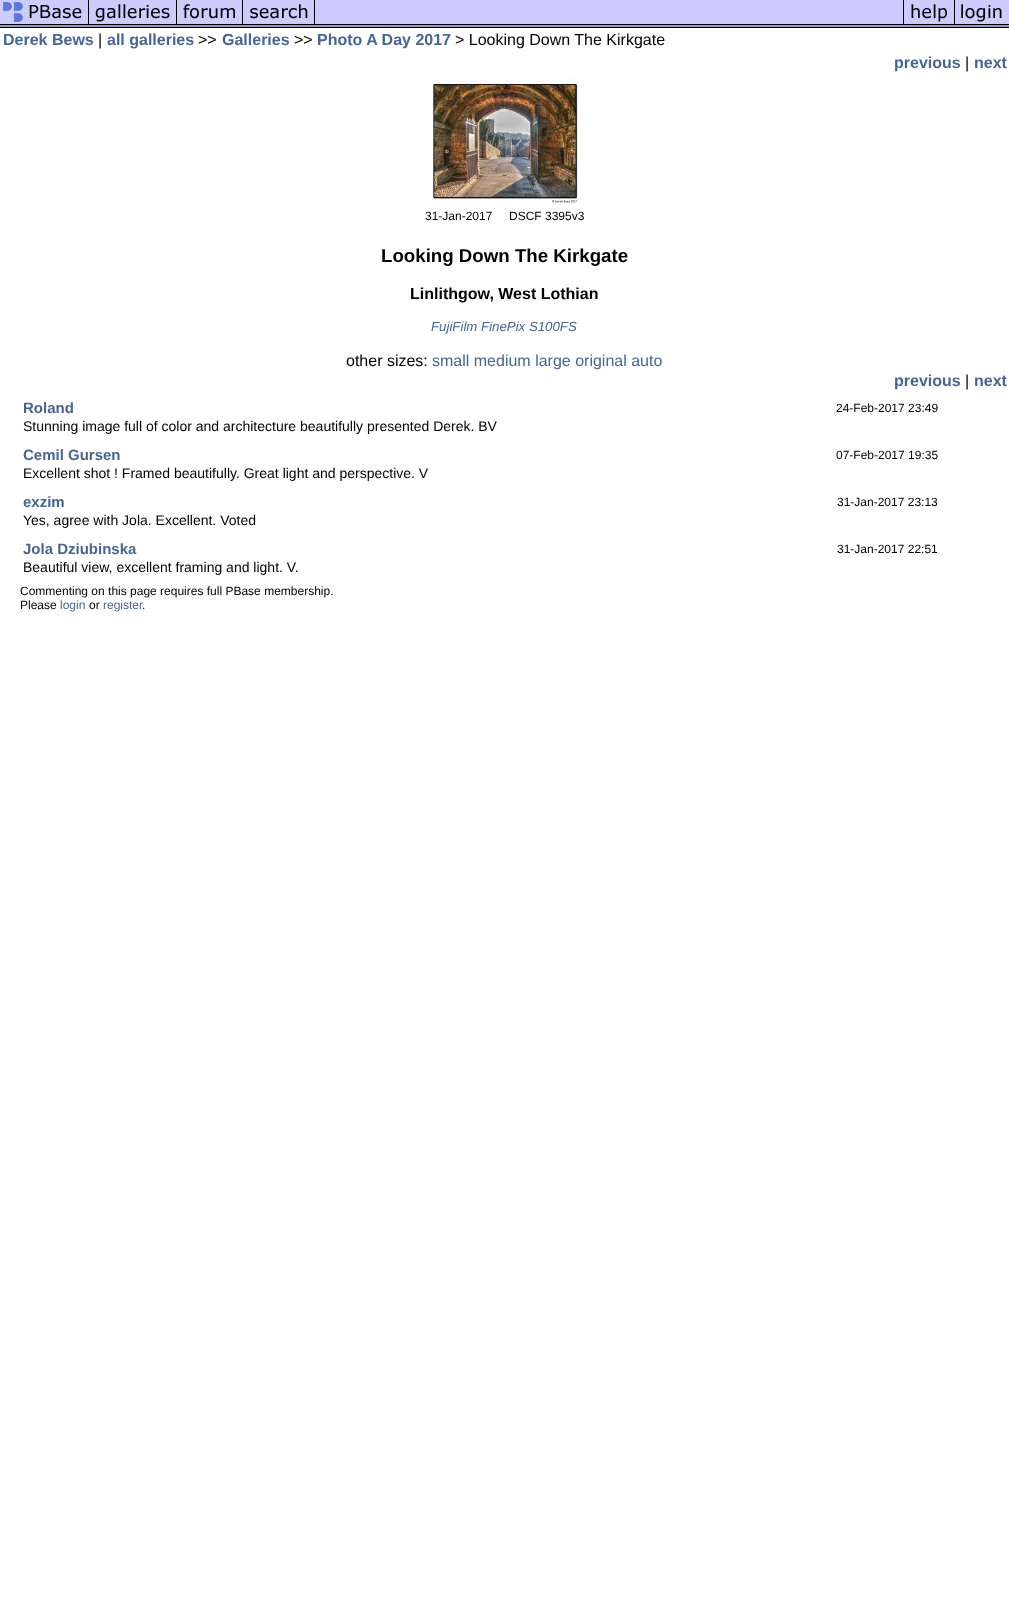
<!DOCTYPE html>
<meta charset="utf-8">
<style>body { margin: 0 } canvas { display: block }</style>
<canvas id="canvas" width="1009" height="1602"></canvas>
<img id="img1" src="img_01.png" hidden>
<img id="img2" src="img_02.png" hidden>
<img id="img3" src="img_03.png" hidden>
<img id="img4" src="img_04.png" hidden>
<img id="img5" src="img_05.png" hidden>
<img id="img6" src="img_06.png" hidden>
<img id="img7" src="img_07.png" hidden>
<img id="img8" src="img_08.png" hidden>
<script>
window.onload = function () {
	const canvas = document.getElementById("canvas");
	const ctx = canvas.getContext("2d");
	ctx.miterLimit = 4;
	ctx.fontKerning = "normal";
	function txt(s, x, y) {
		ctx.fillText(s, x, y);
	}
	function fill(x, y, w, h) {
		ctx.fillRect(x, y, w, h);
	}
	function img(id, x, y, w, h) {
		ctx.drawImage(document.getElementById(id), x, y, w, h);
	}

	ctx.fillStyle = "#FFFFFF";
	fill(0, 0, 1009, 1602);
	img("img1", 0, 0, 89, 28);
	img("img2", 89, 0, 88, 28);
	img("img3", 177, 0, 66, 28);
	img("img4", 243, 0, 72, 28);
	img("img5", 315, 0, 588, 28);
	img("img6", 903, 0, 52, 28);
	img("img7", 955, 0, 54, 28);
	img("img8", 425, 77, 160, 128);
	ctx.font = "bold 16px Liberation Sans";
	ctx.fillStyle = "#486591";
	txt("Derek Bews", 3, 45);
	ctx.font = "16px Liberation Sans";
	ctx.fillStyle = "#000000";
	txt("|", 98, 45);
	ctx.font = "bold 16px Liberation Sans";
	ctx.fillStyle = "#486591";
	txt("all galleries", 107, 45);
	ctx.font = "16px Liberation Sans";
	ctx.fillStyle = "#000000";
	txt(">>", 198, 45);
	ctx.font = "bold 16px Liberation Sans";
	ctx.fillStyle = "#486591";
	txt("Galleries", 222, 45);
	ctx.font = "16px Liberation Sans";
	ctx.fillStyle = "#000000";
	txt(">>", 294, 45);
	ctx.font = "bold 16px Liberation Sans";
	ctx.fillStyle = "#486591";
	txt("Photo A Day 2017", 317, 45);
	ctx.font = "16px Liberation Sans";
	ctx.fillStyle = "#000000";
	txt("> Looking Down The Kirkgate", 455, 45);
	ctx.font = "bold 16px Liberation Sans";
	ctx.fillStyle = "#486591";
	txt("previous", 894, 68);
	ctx.font = "16px Liberation Sans";
	ctx.fillStyle = "#000000";
	txt("|", 965, 68);
	ctx.font = "bold 16px Liberation Sans";
	ctx.fillStyle = "#486591";
	txt("next", 974, 68);
	ctx.font = "12px Liberation Sans";
	ctx.fillStyle = "#000000";
	txt("31-Jan-2017", 425, 220);
	txt("DSCF 3395v3", 509, 220);
	ctx.font = "bold 18.7px Liberation Sans";
	txt("Looking Down The Kirkgate", 381, 262);
	ctx.font = "bold 16px Liberation Sans";
	txt("Linlithgow, West Lothian", 410, 299);
	ctx.font = "italic 13.25px Liberation Sans";
	ctx.fillStyle = "#486591";
	txt("FujiFilm FinePix S100FS", 431, 331);
	ctx.font = "16px Liberation Sans";
	ctx.fillStyle = "#000000";
	txt("other sizes:", 346, 366);
	ctx.fillStyle = "#486591";
	txt("small medium large original auto", 432, 366);
	ctx.font = "bold 16px Liberation Sans";
	txt("previous", 894, 386);
	ctx.font = "16px Liberation Sans";
	ctx.fillStyle = "#000000";
	txt("|", 965, 386);
	ctx.font = "bold 16px Liberation Sans";
	ctx.fillStyle = "#486591";
	txt("next", 974, 386);
	ctx.font = "bold 15px Liberation Sans";
	txt("Roland", 23, 413);
	ctx.font = "12px Liberation Sans";
	ctx.fillStyle = "#000000";
	txt("24-Feb-2017 23:49", 836, 412);
	ctx.font = "14px Liberation Sans";
	txt("Stunning image full of color and architecture beautifully presented Derek. BV", 23, 431);
	ctx.font = "bold 15px Liberation Sans";
	ctx.fillStyle = "#486591";
	txt("Cemil Gursen", 23, 460);
	ctx.font = "12px Liberation Sans";
	ctx.fillStyle = "#000000";
	txt("07-Feb-2017 19:35", 836, 459);
	ctx.font = "14px Liberation Sans";
	txt("Excellent shot ! Framed beautifully. Great light and perspective. V", 23, 478);
	ctx.font = "bold 15px Liberation Sans";
	ctx.fillStyle = "#486591";
	txt("exzim", 23, 507);
	ctx.font = "12px Liberation Sans";
	ctx.fillStyle = "#000000";
	txt("31-Jan-2017 23:13", 837, 506);
	ctx.font = "14px Liberation Sans";
	txt("Yes, agree with Jola. Excellent. Voted", 23, 525);
	ctx.font = "bold 15px Liberation Sans";
	ctx.fillStyle = "#486591";
	txt("Jola Dziubinska", 23, 554);
	ctx.font = "12px Liberation Sans";
	ctx.fillStyle = "#000000";
	txt("31-Jan-2017 22:51", 837, 553);
	ctx.font = "14px Liberation Sans";
	txt("Beautiful view, excellent framing and light. V.", 23, 572);
	ctx.font = "12px Liberation Sans";
	txt("Commenting on this page requires full PBase membership.", 20, 595);
	txt("Please", 20, 609);
	ctx.fillStyle = "#486591";
	txt("login", 60, 609);
	ctx.fillStyle = "#000000";
	txt("or", 89, 609);
	ctx.fillStyle = "#486591";
	txt("register", 103, 609);
	ctx.fillStyle = "#000000";
	txt(".", 142, 609);
};
</script>
